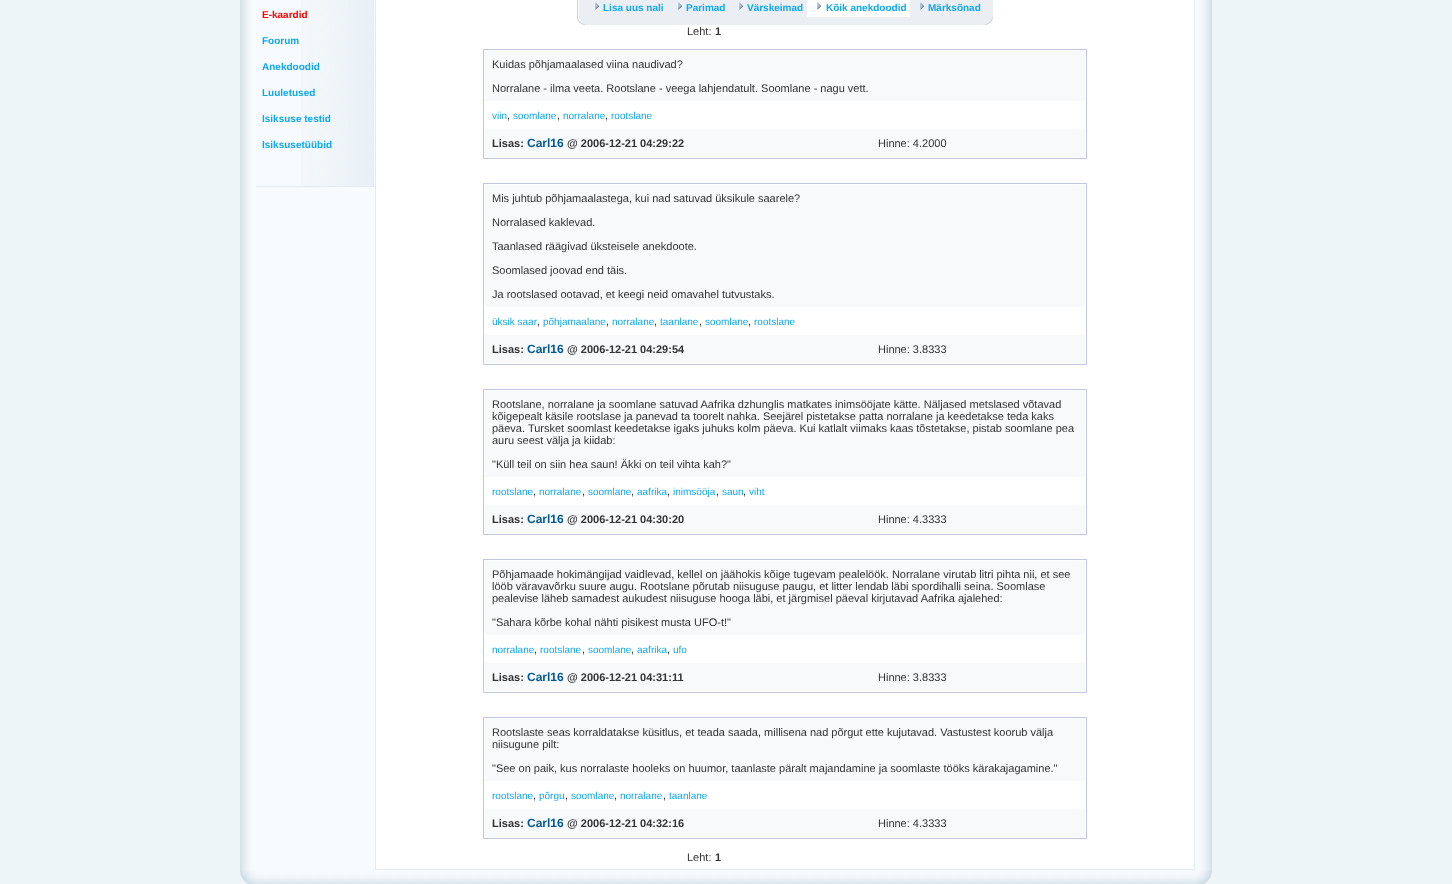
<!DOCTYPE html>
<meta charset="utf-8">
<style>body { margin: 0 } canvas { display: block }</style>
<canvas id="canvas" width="1452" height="884"></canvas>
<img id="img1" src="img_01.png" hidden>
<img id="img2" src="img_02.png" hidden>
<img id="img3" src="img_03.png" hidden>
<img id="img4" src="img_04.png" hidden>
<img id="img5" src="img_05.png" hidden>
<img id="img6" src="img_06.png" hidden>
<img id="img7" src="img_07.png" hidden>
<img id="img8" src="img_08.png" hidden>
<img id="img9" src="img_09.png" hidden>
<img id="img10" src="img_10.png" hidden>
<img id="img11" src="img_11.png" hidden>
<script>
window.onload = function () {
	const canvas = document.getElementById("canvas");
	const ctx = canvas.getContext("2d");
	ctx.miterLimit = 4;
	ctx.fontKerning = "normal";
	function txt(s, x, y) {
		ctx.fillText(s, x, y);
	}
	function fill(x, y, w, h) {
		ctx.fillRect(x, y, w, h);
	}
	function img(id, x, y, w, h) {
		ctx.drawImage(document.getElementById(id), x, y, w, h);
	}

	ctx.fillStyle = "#EEF5F7";
	fill(0, 0, 1452, 884);
	img("img1", 240, 0, 16, 870);
	ctx.fillStyle = "#F8FBFD";
	fill(256, 0, 940, 870);
	img("img2", 301, 0, 72, 186);
	ctx.fillStyle = "#E0EBF3";
	fill(373, 0, 1, 187);
	fill(256, 186, 118, 1);
	ctx.fillStyle = "#FFFFFF";
	ctx.beginPath();
	ctx.rect(375.5, -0.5, 819, 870);
	ctx.fill();
	ctx.strokeStyle = "#E0EBF3";
	ctx.stroke();
	img("img3", 577, 0, 8, 17);
	ctx.fillStyle = "#EBEEF2";
	fill(585, 0, 408, 17);
	img("img4", 595, 2, 4, 8);
	img("img4", 678, 2, 4, 8);
	img("img4", 739, 2, 4, 8);
	ctx.fillStyle = "#FFFFFF";
	fill(807, 0, 103, 17);
	img("img5", 817, 2, 4, 8);
	img("img4", 920, 2, 4, 8);
	img("img6", 577, 17, 8, 8);
	ctx.fillStyle = "#EBEEF2";
	fill(585, 17, 400, 8);
	img("img7", 985, 17, 8, 8);
	ctx.strokeStyle = "#BFC8DF";
	ctx.strokeRect(483.5, 49.5, 603, 109);
	ctx.fillStyle = "#F7F9FB";
	fill(485, 51, 600, 50);
	fill(485, 129, 600, 28);
	ctx.strokeRect(483.5, 183.5, 603, 181);
	fill(485, 185, 600, 122);
	fill(485, 335, 600, 28);
	ctx.strokeRect(483.5, 389.5, 603, 145);
	fill(485, 391, 600, 86);
	fill(485, 505, 600, 28);
	ctx.strokeRect(483.5, 559.5, 603, 133);
	fill(485, 561, 600, 74);
	fill(485, 663, 600, 28);
	ctx.strokeRect(483.5, 717.5, 603, 121);
	fill(485, 719, 600, 62);
	fill(485, 809, 600, 28);
	img("img8", 1196, 0, 16, 870);
	img("img9", 240, 870, 16, 14);
	img("img10", 256, 870, 940, 14);
	img("img11", 1196, 870, 16, 14);
	ctx.font = "bold 10px Liberation Sans";
	ctx.fillStyle = "#FF0000";
	txt("E-kaardid", 262, 18);
	ctx.fillStyle = "#0DA8F2";
	txt("Foorum", 262, 44);
	txt("Anekdoodid", 262, 70);
	txt("Luuletused", 262, 96);
	txt("Isiksuse testid", 262, 122);
	txt("Isiksusetüübid", 262, 148);
	txt("Lisa uus nali", 603, 11);
	txt("Parimad", 686, 11);
	txt("Värskeimad", 747, 11);
	txt("Kõik anekdoodid", 826, 11);
	txt("Märksõnad", 928, 11);
	ctx.font = "11px Liberation Sans";
	ctx.fillStyle = "#333333";
	txt("Leht:", 687, 35);
	ctx.font = "bold 11px Liberation Sans";
	txt("1", 715, 35);
	ctx.font = "11px Liberation Sans";
	txt("Kuidas põhjamaalased viina naudivad?", 492, 68);
	txt("Norralane - ilma veeta. Rootslane - veega lahjendatult. Soomlane - nagu vett.", 492, 92);
	ctx.font = "10px Liberation Sans";
	ctx.fillStyle = "#0DA8F2";
	txt("viin", 492, 119);
	ctx.font = "11px Liberation Sans";
	ctx.fillStyle = "#333333";
	txt(",", 507, 119);
	ctx.font = "10px Liberation Sans";
	ctx.fillStyle = "#0DA8F2";
	txt("soomlane", 513, 119);
	ctx.font = "11px Liberation Sans";
	ctx.fillStyle = "#333333";
	txt(",", 557, 119);
	ctx.font = "10px Liberation Sans";
	ctx.fillStyle = "#0DA8F2";
	txt("norralane", 563, 119);
	ctx.font = "11px Liberation Sans";
	ctx.fillStyle = "#333333";
	txt(",", 605, 119);
	ctx.font = "10px Liberation Sans";
	ctx.fillStyle = "#0DA8F2";
	txt("rootslane", 611, 119);
	ctx.font = "bold 11px Liberation Sans";
	ctx.fillStyle = "#333333";
	txt("Lisas:", 492, 147);
	ctx.font = "bold 12px Liberation Sans";
	ctx.fillStyle = "#005893";
	txt("Carl16", 527, 147);
	ctx.font = "bold 11px Liberation Sans";
	ctx.fillStyle = "#333333";
	txt("@ 2006-12-21 04:29:22", 567, 147);
	ctx.font = "11px Liberation Sans";
	txt("Hinne: 4.2000", 878, 147);
	txt("Mis juhtub põhjamaalastega, kui nad satuvad üksikule saarele?", 492, 202);
	txt("Norralased kaklevad.", 492, 226);
	txt("Taanlased räägivad üksteisele anekdoote.", 492, 250);
	txt("Soomlased joovad end täis.", 492, 274);
	txt("Ja rootslased ootavad, et keegi neid omavahel tutvustaks.", 492, 298);
	ctx.font = "10px Liberation Sans";
	ctx.fillStyle = "#0DA8F2";
	txt("üksik saar", 492, 325);
	ctx.font = "11px Liberation Sans";
	ctx.fillStyle = "#333333";
	txt(",", 537, 325);
	ctx.font = "10px Liberation Sans";
	ctx.fillStyle = "#0DA8F2";
	txt("põhjamaalane", 543, 325);
	ctx.font = "11px Liberation Sans";
	ctx.fillStyle = "#333333";
	txt(",", 606, 325);
	ctx.font = "10px Liberation Sans";
	ctx.fillStyle = "#0DA8F2";
	txt("norralane", 612, 325);
	ctx.font = "11px Liberation Sans";
	ctx.fillStyle = "#333333";
	txt(",", 654, 325);
	ctx.font = "10px Liberation Sans";
	ctx.fillStyle = "#0DA8F2";
	txt("taanlane", 660, 325);
	ctx.font = "11px Liberation Sans";
	ctx.fillStyle = "#333333";
	txt(",", 699, 325);
	ctx.font = "10px Liberation Sans";
	ctx.fillStyle = "#0DA8F2";
	txt("soomlane", 705, 325);
	ctx.font = "11px Liberation Sans";
	ctx.fillStyle = "#333333";
	txt(",", 748, 325);
	ctx.font = "10px Liberation Sans";
	ctx.fillStyle = "#0DA8F2";
	txt("rootslane", 754, 325);
	ctx.font = "bold 11px Liberation Sans";
	ctx.fillStyle = "#333333";
	txt("Lisas:", 492, 353);
	ctx.font = "bold 12px Liberation Sans";
	ctx.fillStyle = "#005893";
	txt("Carl16", 527, 353);
	ctx.font = "bold 11px Liberation Sans";
	ctx.fillStyle = "#333333";
	txt("@ 2006-12-21 04:29:54", 567, 353);
	ctx.font = "11px Liberation Sans";
	txt("Hinne: 3.8333", 878, 353);
	txt("Rootslane, norralane ja soomlane satuvad Aafrika dzhunglis matkates inimsööjate kätte. Näljased metslased võtavad", 492, 408);
	txt("kõigepealt käsile rootslase ja panevad ta toorelt nahka. Seejärel pistetakse patta norralane ja keedetakse teda kaks", 492, 420);
	txt("päeva. Tursket soomlast keedetakse igaks juhuks kolm päeva. Kui katlalt viimaks kaas tõstetakse, pistab soomlane pea", 492, 432);
	txt("auru seest välja ja kiidab:", 492, 444);
	txt("\"Küll teil on siin hea saun! Äkki on teil vihta kah?\"", 492, 468);
	ctx.font = "10px Liberation Sans";
	ctx.fillStyle = "#0DA8F2";
	txt("rootslane", 492, 495);
	ctx.font = "11px Liberation Sans";
	ctx.fillStyle = "#333333";
	txt(",", 533, 495);
	ctx.font = "10px Liberation Sans";
	ctx.fillStyle = "#0DA8F2";
	txt("norralane", 539, 495);
	ctx.font = "11px Liberation Sans";
	ctx.fillStyle = "#333333";
	txt(",", 582, 495);
	ctx.font = "10px Liberation Sans";
	ctx.fillStyle = "#0DA8F2";
	txt("soomlane", 588, 495);
	ctx.font = "11px Liberation Sans";
	ctx.fillStyle = "#333333";
	txt(",", 631, 495);
	ctx.font = "10px Liberation Sans";
	ctx.fillStyle = "#0DA8F2";
	txt("aafrika", 637, 495);
	ctx.font = "11px Liberation Sans";
	ctx.fillStyle = "#333333";
	txt(",", 667, 495);
	ctx.font = "10px Liberation Sans";
	ctx.fillStyle = "#0DA8F2";
	txt("inimsööja", 673, 495);
	ctx.font = "11px Liberation Sans";
	ctx.fillStyle = "#333333";
	txt(",", 716, 495);
	ctx.font = "10px Liberation Sans";
	ctx.fillStyle = "#0DA8F2";
	txt("saun", 722, 495);
	ctx.font = "11px Liberation Sans";
	ctx.fillStyle = "#333333";
	txt(",", 743, 495);
	ctx.font = "10px Liberation Sans";
	ctx.fillStyle = "#0DA8F2";
	txt("viht", 749, 495);
	ctx.font = "bold 11px Liberation Sans";
	ctx.fillStyle = "#333333";
	txt("Lisas:", 492, 523);
	ctx.font = "bold 12px Liberation Sans";
	ctx.fillStyle = "#005893";
	txt("Carl16", 527, 523);
	ctx.font = "bold 11px Liberation Sans";
	ctx.fillStyle = "#333333";
	txt("@ 2006-12-21 04:30:20", 567, 523);
	ctx.font = "11px Liberation Sans";
	txt("Hinne: 4.3333", 878, 523);
	txt("Põhjamaade hokimängijad vaidlevad, kellel on jäähokis kõige tugevam pealelöök. Norralane virutab litri pihta nii, et see", 492, 578);
	txt("lööb väravavõrku suure augu. Rootslane põrutab niisuguse paugu, et litter lendab läbi spordihalli seina. Soomlase", 492, 590);
	txt("pealevise läheb samadest aukudest niisuguse hooga läbi, et järgmisel päeval kirjutavad Aafrika ajalehed:", 492, 602);
	txt("\"Sahara kõrbe kohal nähti pisikest musta UFO-t!\"", 492, 626);
	ctx.font = "10px Liberation Sans";
	ctx.fillStyle = "#0DA8F2";
	txt("norralane", 492, 653);
	ctx.font = "11px Liberation Sans";
	ctx.fillStyle = "#333333";
	txt(",", 534, 653);
	ctx.font = "10px Liberation Sans";
	ctx.fillStyle = "#0DA8F2";
	txt("rootslane", 540, 653);
	ctx.font = "11px Liberation Sans";
	ctx.fillStyle = "#333333";
	txt(",", 582, 653);
	ctx.font = "10px Liberation Sans";
	ctx.fillStyle = "#0DA8F2";
	txt("soomlane", 588, 653);
	ctx.font = "11px Liberation Sans";
	ctx.fillStyle = "#333333";
	txt(",", 631, 653);
	ctx.font = "10px Liberation Sans";
	ctx.fillStyle = "#0DA8F2";
	txt("aafrika", 637, 653);
	ctx.font = "11px Liberation Sans";
	ctx.fillStyle = "#333333";
	txt(",", 667, 653);
	ctx.font = "10px Liberation Sans";
	ctx.fillStyle = "#0DA8F2";
	txt("ufo", 673, 653);
	ctx.font = "bold 11px Liberation Sans";
	ctx.fillStyle = "#333333";
	txt("Lisas:", 492, 681);
	ctx.font = "bold 12px Liberation Sans";
	ctx.fillStyle = "#005893";
	txt("Carl16", 527, 681);
	ctx.font = "bold 11px Liberation Sans";
	ctx.fillStyle = "#333333";
	txt("@ 2006-12-21 04:31:11", 567, 681);
	ctx.font = "11px Liberation Sans";
	txt("Hinne: 3.8333", 878, 681);
	txt("Rootslaste seas korraldatakse küsitlus, et teada saada, millisena nad põrgut ette kujutavad. Vastustest koorub välja", 492, 736);
	txt("niisugune pilt:", 492, 748);
	txt("\"See on paik, kus norralaste hooleks on huumor, taanlaste päralt majandamine ja soomlaste tööks kärakajagamine.\"", 492, 772);
	ctx.font = "10px Liberation Sans";
	ctx.fillStyle = "#0DA8F2";
	txt("rootslane", 492, 799);
	ctx.font = "11px Liberation Sans";
	ctx.fillStyle = "#333333";
	txt(",", 533, 799);
	ctx.font = "10px Liberation Sans";
	ctx.fillStyle = "#0DA8F2";
	txt("põrgu", 539, 799);
	ctx.font = "11px Liberation Sans";
	ctx.fillStyle = "#333333";
	txt(",", 565, 799);
	ctx.font = "10px Liberation Sans";
	ctx.fillStyle = "#0DA8F2";
	txt("soomlane", 571, 799);
	ctx.font = "11px Liberation Sans";
	ctx.fillStyle = "#333333";
	txt(",", 614, 799);
	ctx.font = "10px Liberation Sans";
	ctx.fillStyle = "#0DA8F2";
	txt("norralane", 620, 799);
	ctx.font = "11px Liberation Sans";
	ctx.fillStyle = "#333333";
	txt(",", 663, 799);
	ctx.font = "10px Liberation Sans";
	ctx.fillStyle = "#0DA8F2";
	txt("taanlane", 669, 799);
	ctx.font = "bold 11px Liberation Sans";
	ctx.fillStyle = "#333333";
	txt("Lisas:", 492, 827);
	ctx.font = "bold 12px Liberation Sans";
	ctx.fillStyle = "#005893";
	txt("Carl16", 527, 827);
	ctx.font = "bold 11px Liberation Sans";
	ctx.fillStyle = "#333333";
	txt("@ 2006-12-21 04:32:16", 567, 827);
	ctx.font = "11px Liberation Sans";
	txt("Hinne: 4.3333", 878, 827);
	txt("Leht:", 687, 861);
	ctx.font = "bold 11px Liberation Sans";
	txt("1", 715, 861);
};
</script>
